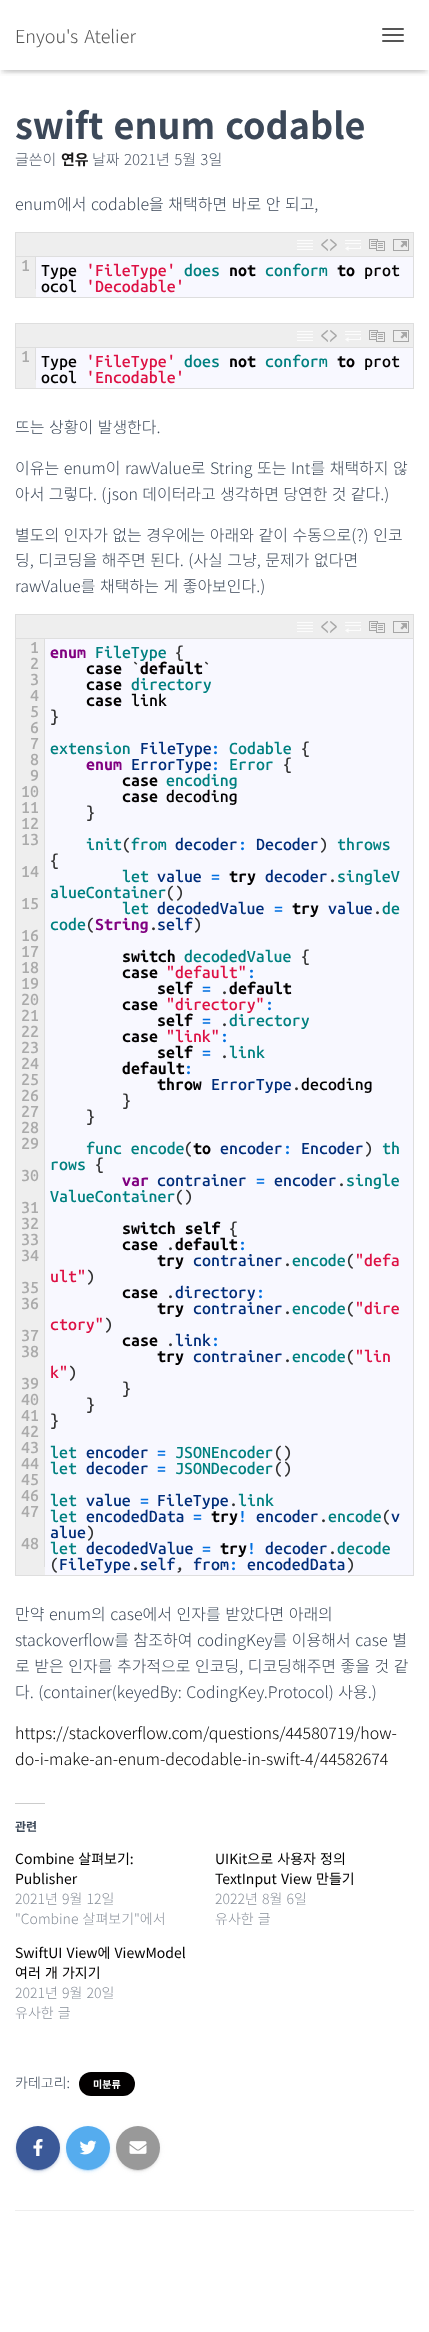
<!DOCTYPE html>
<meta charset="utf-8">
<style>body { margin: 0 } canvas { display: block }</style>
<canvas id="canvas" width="429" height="2332"></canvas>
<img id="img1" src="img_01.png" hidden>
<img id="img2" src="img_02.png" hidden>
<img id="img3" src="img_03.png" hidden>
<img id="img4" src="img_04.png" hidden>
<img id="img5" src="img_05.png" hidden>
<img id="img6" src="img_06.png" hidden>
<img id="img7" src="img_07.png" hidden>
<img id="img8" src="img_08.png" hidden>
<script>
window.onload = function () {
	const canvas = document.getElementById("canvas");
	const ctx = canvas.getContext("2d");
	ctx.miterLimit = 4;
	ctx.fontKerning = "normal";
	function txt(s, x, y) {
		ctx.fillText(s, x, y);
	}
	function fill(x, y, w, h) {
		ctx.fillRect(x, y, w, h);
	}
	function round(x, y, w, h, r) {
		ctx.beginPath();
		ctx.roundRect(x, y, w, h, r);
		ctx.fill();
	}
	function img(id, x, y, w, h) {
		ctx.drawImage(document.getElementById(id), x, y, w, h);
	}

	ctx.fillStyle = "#FFFFFF";
	fill(0, 0, 429, 2332);
	ctx.save();
	ctx.beginPath();
	ctx.rect(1, 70, 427, 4);
	ctx.clip();
	ctx.fillStyle = "rgba(0, 0, 0, 0.1)";
	ctx.filter = "blur(2.5px)";
	ctx.beginPath();
	ctx.rect(2, 6, 425, 66);
	ctx.fill();
	ctx.filter = "none";
	ctx.restore();
	ctx.save();
	ctx.beginPath();
	ctx.rect(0, 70, 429, 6);
	ctx.clip();
	ctx.fillStyle = "rgba(0, 0, 0, 0.12)";
	ctx.filter = "blur(5px)";
	ctx.beginPath();
	ctx.rect(0, 1, 429, 70);
	ctx.fill();
	ctx.filter = "none";
	ctx.restore();
	ctx.save();
	ctx.beginPath();
	ctx.rect(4, 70, 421, 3);
	ctx.clip();
	ctx.fillStyle = "rgba(0, 0, 0, 0.42)";
	ctx.filter = "blur(5px)";
	ctx.beginPath();
	ctx.rect(6, 7, 417, 58);
	ctx.fill();
	ctx.filter = "none";
	ctx.restore();
	ctx.fillStyle = "#555555";
	round(382, 28, 22, 2, 1);
	round(382, 34, 22, 2, 1);
	round(382, 40, 22, 2, 1);
	ctx.fillStyle = "#F8F8FF";
	fill(36, 257, 377, 40);
	ctx.strokeStyle = "#DEDEDE";
	ctx.strokeRect(15.5, 232.5, 398, 65);
	ctx.fillStyle = "#EEEEEE";
	fill(16, 233, 397, 23);
	ctx.fillStyle = "#DEDEDE";
	fill(16, 256, 397, 1);
	img("img1", 297, 240, 16, 10);
	img("img2", 321, 239, 16, 12);
	img("img3", 345, 240, 16, 11);
	img("img4", 369, 239, 16, 12);
	img("img5", 393, 239, 16, 12);
	ctx.fillStyle = "#EEEEEE";
	fill(16, 257, 20, 40);
	ctx.fillStyle = "#DEDEDE";
	fill(35, 257, 1, 32);
	ctx.fillStyle = "#F8F8FF";
	fill(36, 348, 377, 40);
	ctx.strokeRect(15.5, 323.5, 398, 65);
	ctx.fillStyle = "#EEEEEE";
	fill(16, 324, 397, 23);
	ctx.fillStyle = "#DEDEDE";
	fill(16, 347, 397, 1);
	img("img1", 297, 331, 16, 10);
	img("img2", 321, 330, 16, 12);
	img("img3", 345, 331, 16, 11);
	img("img4", 369, 330, 16, 12);
	img("img5", 393, 330, 16, 12);
	ctx.fillStyle = "#EEEEEE";
	fill(16, 348, 20, 40);
	ctx.fillStyle = "#DEDEDE";
	fill(35, 348, 1, 32);
	ctx.fillStyle = "#F8F8FF";
	fill(45, 639, 368, 936);
	ctx.strokeRect(15.5, 614.5, 398, 961);
	ctx.fillStyle = "#EEEEEE";
	fill(16, 615, 397, 23);
	ctx.fillStyle = "#DEDEDE";
	fill(16, 638, 397, 1);
	img("img1", 297, 622, 16, 10);
	img("img2", 321, 621, 16, 12);
	img("img3", 345, 622, 16, 11);
	img("img4", 369, 621, 16, 12);
	img("img5", 393, 621, 16, 12);
	ctx.fillStyle = "#EEEEEE";
	fill(16, 639, 29, 936);
	ctx.fillStyle = "#DEDEDE";
	fill(44, 639, 1, 928);
	ctx.fillStyle = "#CCCCCC";
	fill(15, 1803, 30, 1);
	ctx.fillStyle = "#020000";
	round(79, 2072, 56, 24, 12);
	ctx.fillStyle = "rgba(59, 89, 152, 0.12)";
	ctx.filter = "blur(2.5px)";
	ctx.beginPath();
	ctx.roundRect(16, 2127, 44, 44, 22);
	ctx.fill();
	ctx.filter = "none";
	ctx.fillStyle = "rgba(59, 89, 152, 0.2)";
	ctx.filter = "blur(0.5px)";
	ctx.beginPath();
	ctx.roundRect(18, 2131, 40, 40, 20);
	ctx.fill();
	ctx.filter = "none";
	ctx.fillStyle = "rgba(59, 89, 152, 0.14)";
	ctx.filter = "blur(1px)";
	ctx.beginPath();
	ctx.roundRect(16, 2128, 44, 44, 22);
	ctx.fill();
	ctx.filter = "none";
	ctx.fillStyle = "#3B5998";
	ctx.beginPath();
	ctx.arc(38, 2148, 22, 0, Math.PI * 2);
	ctx.fill();
	img("img6", 33, 2139, 10, 17);
	ctx.fillStyle = "rgba(85, 172, 238, 0.12)";
	ctx.filter = "blur(2.5px)";
	ctx.beginPath();
	ctx.roundRect(66, 2127, 44, 44, 22);
	ctx.fill();
	ctx.filter = "none";
	ctx.fillStyle = "rgba(85, 172, 238, 0.2)";
	ctx.filter = "blur(0.5px)";
	ctx.beginPath();
	ctx.roundRect(68, 2131, 40, 40, 20);
	ctx.fill();
	ctx.filter = "none";
	ctx.fillStyle = "rgba(85, 172, 238, 0.14)";
	ctx.filter = "blur(1px)";
	ctx.beginPath();
	ctx.roundRect(66, 2128, 44, 44, 22);
	ctx.fill();
	ctx.filter = "none";
	ctx.fillStyle = "#55ACEE";
	ctx.beginPath();
	ctx.arc(88, 2148, 22, 0, Math.PI * 2);
	ctx.fill();
	img("img7", 79, 2140, 18, 15);
	ctx.fillStyle = "rgba(153, 153, 153, 0.12)";
	ctx.filter = "blur(2.5px)";
	ctx.beginPath();
	ctx.roundRect(116, 2127, 44, 44, 22);
	ctx.fill();
	ctx.filter = "none";
	ctx.fillStyle = "rgba(153, 153, 153, 0.2)";
	ctx.filter = "blur(0.5px)";
	ctx.beginPath();
	ctx.roundRect(118, 2131, 40, 40, 20);
	ctx.fill();
	ctx.filter = "none";
	ctx.fillStyle = "rgba(153, 153, 153, 0.14)";
	ctx.filter = "blur(1px)";
	ctx.beginPath();
	ctx.roundRect(116, 2128, 44, 44, 22);
	ctx.fill();
	ctx.filter = "none";
	ctx.fillStyle = "#999999";
	ctx.beginPath();
	ctx.arc(138, 2148, 22, 0, Math.PI * 2);
	ctx.fill();
	img("img8", 129, 2141, 18, 13);
	ctx.fillStyle = "#EEEEEE";
	fill(15, 2210, 399, 1);
	ctx.wordSpacing = "2px";
	ctx.font = "300 18px Noto Sans KR";
	ctx.fillStyle = "#555555";
	txt("Enyou's Atelier", 15, 43);
	ctx.font = "bold 36px Noto Sans KR";
	ctx.fillStyle = "#3C4858";
	txt("swift enum codable", 15, 139);
	ctx.wordSpacing = "0px";
	ctx.font = "300 15px Noto Sans KR";
	ctx.fillStyle = "#505A69";
	txt("글쓴이", 15, 165);
	ctx.font = "bold 15px Noto Sans KR";
	ctx.fillStyle = "#1B1A1A";
	txt("연유", 61, 165);
	ctx.font = "300 15px Noto Sans KR";
	ctx.fillStyle = "#505A69";
	txt("날짜", 92, 165);
	ctx.wordSpacing = "1px";
	txt("2021년 5월 3일", 124, 165);
	ctx.font = "300 16px Noto Sans KR";
	ctx.fillStyle = "#3C4858";
	txt("enum에서 codable을 채택하면 바로 안 되고,", 15, 210);
	ctx.wordSpacing = "0px";
	ctx.font = "500 16px Ubuntu Mono";
	ctx.fillStyle = "#AAAAAA";
	txt("1", 21, 271);
	ctx.fillStyle = "#020000";
	txt("Type", 41, 276);
	ctx.fillStyle = "#DD1144";
	txt("'FileType'", 86, 276);
	ctx.fillStyle = "#008080";
	txt("does", 184, 276);
	ctx.font = "bold 16px Ubuntu Mono";
	ctx.fillStyle = "#020000";
	txt("not", 229, 276);
	ctx.font = "500 16px Ubuntu Mono";
	ctx.fillStyle = "#008080";
	txt("conform", 265, 276);
	ctx.font = "bold 16px Ubuntu Mono";
	ctx.fillStyle = "#020000";
	txt("to", 337, 276);
	ctx.font = "500 16px Ubuntu Mono";
	txt("prot", 364, 276);
	txt("ocol", 41, 292);
	ctx.fillStyle = "#DD1144";
	txt("'Decodable'", 86, 292);
	ctx.fillStyle = "#AAAAAA";
	txt("1", 21, 362);
	ctx.fillStyle = "#020000";
	txt("Type", 41, 367);
	ctx.fillStyle = "#DD1144";
	txt("'FileType'", 86, 367);
	ctx.fillStyle = "#008080";
	txt("does", 184, 367);
	ctx.font = "bold 16px Ubuntu Mono";
	ctx.fillStyle = "#020000";
	txt("not", 229, 367);
	ctx.font = "500 16px Ubuntu Mono";
	ctx.fillStyle = "#008080";
	txt("conform", 265, 367);
	ctx.font = "bold 16px Ubuntu Mono";
	ctx.fillStyle = "#020000";
	txt("to", 337, 367);
	ctx.font = "500 16px Ubuntu Mono";
	txt("prot", 364, 367);
	txt("ocol", 41, 383);
	ctx.fillStyle = "#DD1144";
	txt("'Encodable'", 86, 383);
	ctx.wordSpacing = "1px";
	ctx.font = "300 16px Noto Sans KR";
	ctx.fillStyle = "#3C4858";
	txt("뜨는 상황이 발생한다.", 15, 433);
	txt("이유는 enum이 rawValue로 String 또는 Int를 채택하지 않", 15, 474);
	ctx.wordSpacing = "0.75px";
	txt("아서 그렇다. (json 데이터라고 생각하면 당연한 것 같다.)", 15, 500);
	ctx.wordSpacing = "1px";
	txt("별도의 인자가 없는 경우에는 아래와 같이 수동으로(?) 인코", 15, 541);
	txt("딩, 디코딩을 해주면 된다. (사실 그냥, 문제가 없다면", 15, 566);
	txt("rawValue를 채택하는 게 좋아보인다.)", 15, 592);
	ctx.wordSpacing = "0px";
	ctx.font = "500 16px Ubuntu Mono";
	ctx.fillStyle = "#AAAAAA";
	txt("1", 30, 653);
	txt("2", 30, 669);
	txt("3", 30, 685);
	txt("4", 30, 701);
	txt("5", 30, 717);
	txt("6", 30, 733);
	txt("7", 30, 749);
	txt("8", 30, 765);
	txt("9", 30, 781);
	txt("10", 21, 797);
	txt("11", 21, 813);
	txt("12", 21, 829);
	txt("13", 21, 845);
	txt("14", 21, 877);
	txt("15", 21, 909);
	txt("16", 21, 941);
	txt("17", 21, 957);
	txt("18", 21, 973);
	txt("19", 21, 989);
	txt("20", 21, 1005);
	txt("21", 21, 1021);
	txt("22", 21, 1037);
	txt("23", 21, 1053);
	txt("24", 21, 1069);
	txt("25", 21, 1085);
	txt("26", 21, 1101);
	txt("27", 21, 1117);
	txt("28", 21, 1133);
	txt("29", 21, 1149);
	txt("30", 21, 1181);
	txt("31", 21, 1213);
	txt("32", 21, 1229);
	txt("33", 21, 1245);
	txt("34", 21, 1261);
	txt("35", 21, 1293);
	txt("36", 21, 1309);
	txt("37", 21, 1341);
	txt("38", 21, 1357);
	txt("39", 21, 1389);
	txt("40", 21, 1405);
	txt("41", 21, 1421);
	txt("42", 21, 1437);
	txt("43", 21, 1453);
	txt("44", 21, 1469);
	txt("45", 21, 1485);
	txt("46", 21, 1501);
	txt("47", 21, 1517);
	txt("48", 21, 1549);
	ctx.font = "bold 16px Ubuntu Mono";
	ctx.fillStyle = "#800080";
	txt("enum", 50, 658);
	ctx.font = "500 16px Ubuntu Mono";
	ctx.fillStyle = "#008080";
	txt("FileType", 95, 658);
	ctx.fillStyle = "#333333";
	txt("{", 175, 658);
	txt("`", 131, 674);
	ctx.font = "bold 16px Ubuntu Mono";
	ctx.fillStyle = "#020000";
	txt("default", 140, 674);
	ctx.font = "500 16px Ubuntu Mono";
	ctx.fillStyle = "#333333";
	txt("`", 202, 674);
	ctx.font = "bold 16px Ubuntu Mono";
	ctx.fillStyle = "#020000";
	txt("case", 86, 674);
	txt("case", 86, 690);
	ctx.font = "500 16px Ubuntu Mono";
	ctx.fillStyle = "#008080";
	txt("directory", 131, 690);
	ctx.font = "bold 16px Ubuntu Mono";
	ctx.fillStyle = "#020000";
	txt("case", 86, 706);
	ctx.font = "500 16px Ubuntu Mono";
	txt("link", 131, 706);
	ctx.fillStyle = "#333333";
	txt("}", 50, 722);
	ctx.fillStyle = "#008080";
	txt("extension", 50, 754);
	ctx.fillStyle = "#002D7A";
	txt("FileType", 140, 754);
	ctx.fillStyle = "#006FE0";
	txt(":", 211, 754);
	ctx.fillStyle = "#008080";
	txt("Codable", 229, 754);
	ctx.fillStyle = "#333333";
	txt("{", 301, 754);
	ctx.font = "bold 16px Ubuntu Mono";
	ctx.fillStyle = "#800080";
	txt("enum", 86, 770);
	ctx.font = "500 16px Ubuntu Mono";
	ctx.fillStyle = "#002D7A";
	txt("ErrorType", 131, 770);
	ctx.fillStyle = "#006FE0";
	txt(":", 211, 770);
	ctx.fillStyle = "#008080";
	txt("Error", 229, 770);
	ctx.fillStyle = "#333333";
	txt("{", 283, 770);
	ctx.font = "bold 16px Ubuntu Mono";
	ctx.fillStyle = "#020000";
	txt("case", 122, 786);
	ctx.font = "500 16px Ubuntu Mono";
	ctx.fillStyle = "#008080";
	txt("encoding", 166, 786);
	ctx.font = "bold 16px Ubuntu Mono";
	ctx.fillStyle = "#020000";
	txt("case", 122, 802);
	ctx.font = "500 16px Ubuntu Mono";
	txt("decoding", 166, 802);
	ctx.fillStyle = "#333333";
	txt("}", 86, 818);
	ctx.fillStyle = "#008080";
	txt("init from", 86, 850);
	ctx.fillStyle = "#333333";
	txt("(", 122, 850);
	ctx.fillStyle = "#002D7A";
	txt("decoder", 175, 850);
	ctx.fillStyle = "#006FE0";
	txt(":", 238, 850);
	ctx.fillStyle = "#002D7A";
	txt("Decoder", 256, 850);
	ctx.fillStyle = "#333333";
	txt(")", 319, 850);
	ctx.fillStyle = "#008080";
	txt("throws", 337, 850);
	ctx.fillStyle = "#333333";
	txt("{", 50, 866);
	ctx.fillStyle = "#008080";
	txt("let", 122, 882);
	ctx.fillStyle = "#002D7A";
	txt("value", 157, 882);
	ctx.fillStyle = "#006FE0";
	txt("=", 211, 882);
	ctx.font = "bold 16px Ubuntu Mono";
	ctx.fillStyle = "#020000";
	txt("try", 229, 882);
	ctx.font = "500 16px Ubuntu Mono";
	ctx.fillStyle = "#002D7A";
	txt("decoder", 265, 882);
	ctx.fillStyle = "#008080";
	txt("singleV", 337, 882);
	ctx.fillStyle = "#333333";
	txt(".", 328, 882);
	ctx.fillStyle = "#008080";
	txt("alueContainer", 50, 898);
	ctx.fillStyle = "#333333";
	txt("()", 166, 898);
	ctx.fillStyle = "#008080";
	txt("let", 122, 914);
	ctx.fillStyle = "#002D7A";
	txt("decodedValue", 157, 914);
	ctx.fillStyle = "#006FE0";
	txt("=", 274, 914);
	ctx.font = "bold 16px Ubuntu Mono";
	ctx.fillStyle = "#020000";
	txt("try", 292, 914);
	ctx.font = "500 16px Ubuntu Mono";
	ctx.fillStyle = "#002D7A";
	txt("value", 328, 914);
	ctx.fillStyle = "#008080";
	txt("de", 382, 914);
	ctx.fillStyle = "#333333";
	txt(".", 373, 914);
	ctx.fillStyle = "#008080";
	txt("code", 50, 930);
	ctx.fillStyle = "#333333";
	txt("(", 86, 930);
	ctx.font = "bold 16px Ubuntu Mono";
	ctx.fillStyle = "#800080";
	txt("String", 95, 930);
	ctx.font = "500 16px Ubuntu Mono";
	ctx.fillStyle = "#333333";
	txt(".", 149, 930);
	ctx.fillStyle = "#002D7A";
	txt("self", 157, 930);
	ctx.fillStyle = "#333333";
	txt(")", 193, 930);
	ctx.font = "bold 16px Ubuntu Mono";
	ctx.fillStyle = "#020000";
	txt("switch", 122, 962);
	ctx.font = "500 16px Ubuntu Mono";
	ctx.fillStyle = "#008080";
	txt("decodedValue", 184, 962);
	ctx.fillStyle = "#333333";
	txt("{", 301, 962);
	ctx.font = "bold 16px Ubuntu Mono";
	ctx.fillStyle = "#020000";
	txt("case", 122, 978);
	ctx.font = "500 16px Ubuntu Mono";
	ctx.fillStyle = "#DD1144";
	txt("\"default\"", 166, 978);
	ctx.fillStyle = "#006FE0";
	txt(":", 247, 978);
	ctx.font = "bold 16px Ubuntu Mono";
	ctx.fillStyle = "#020000";
	txt("self", 157, 994);
	ctx.font = "500 16px Ubuntu Mono";
	ctx.fillStyle = "#006FE0";
	txt("=", 202, 994);
	ctx.font = "bold 16px Ubuntu Mono";
	ctx.fillStyle = "#020000";
	txt("default", 229, 994);
	ctx.font = "500 16px Ubuntu Mono";
	ctx.fillStyle = "#333333";
	txt(".", 220, 994);
	ctx.font = "bold 16px Ubuntu Mono";
	ctx.fillStyle = "#020000";
	txt("case", 122, 1010);
	ctx.font = "500 16px Ubuntu Mono";
	ctx.fillStyle = "#DD1144";
	txt("\"directory\"", 166, 1010);
	ctx.fillStyle = "#006FE0";
	txt(":", 265, 1010);
	ctx.font = "bold 16px Ubuntu Mono";
	ctx.fillStyle = "#020000";
	txt("self", 157, 1026);
	ctx.font = "500 16px Ubuntu Mono";
	ctx.fillStyle = "#006FE0";
	txt("=", 202, 1026);
	ctx.fillStyle = "#008080";
	txt("directory", 229, 1026);
	ctx.fillStyle = "#333333";
	txt(".", 220, 1026);
	ctx.font = "bold 16px Ubuntu Mono";
	ctx.fillStyle = "#020000";
	txt("case", 122, 1042);
	ctx.font = "500 16px Ubuntu Mono";
	ctx.fillStyle = "#DD1144";
	txt("\"link\"", 166, 1042);
	ctx.fillStyle = "#006FE0";
	txt(":", 220, 1042);
	ctx.font = "bold 16px Ubuntu Mono";
	ctx.fillStyle = "#020000";
	txt("self", 157, 1058);
	ctx.font = "500 16px Ubuntu Mono";
	ctx.fillStyle = "#006FE0";
	txt("=", 202, 1058);
	ctx.fillStyle = "#008080";
	txt("link", 229, 1058);
	ctx.fillStyle = "#333333";
	txt(".", 220, 1058);
	ctx.font = "bold 16px Ubuntu Mono";
	ctx.fillStyle = "#020000";
	txt("default", 122, 1074);
	ctx.font = "500 16px Ubuntu Mono";
	ctx.fillStyle = "#006FE0";
	txt(":", 184, 1074);
	ctx.font = "bold 16px Ubuntu Mono";
	ctx.fillStyle = "#020000";
	txt("throw", 157, 1090);
	ctx.font = "500 16px Ubuntu Mono";
	ctx.fillStyle = "#002D7A";
	txt("ErrorType", 211, 1090);
	ctx.fillStyle = "#333333";
	txt(".", 292, 1090);
	ctx.fillStyle = "#020000";
	txt("decoding", 301, 1090);
	ctx.fillStyle = "#333333";
	txt("}", 122, 1106);
	txt("}", 86, 1122);
	ctx.fillStyle = "#008080";
	txt("func encode", 86, 1154);
	ctx.fillStyle = "#333333";
	txt("(", 184, 1154);
	ctx.font = "bold 16px Ubuntu Mono";
	ctx.fillStyle = "#020000";
	txt("to", 193, 1154);
	ctx.font = "500 16px Ubuntu Mono";
	ctx.fillStyle = "#002D7A";
	txt("encoder", 220, 1154);
	ctx.fillStyle = "#006FE0";
	txt(":", 283, 1154);
	ctx.fillStyle = "#002D7A";
	txt("Encoder", 301, 1154);
	ctx.fillStyle = "#333333";
	txt(")", 364, 1154);
	ctx.fillStyle = "#008080";
	txt("th", 382, 1154);
	txt("rows", 50, 1170);
	ctx.fillStyle = "#333333";
	txt("{", 95, 1170);
	ctx.font = "bold 16px Ubuntu Mono";
	ctx.fillStyle = "#800080";
	txt("var", 122, 1186);
	ctx.font = "500 16px Ubuntu Mono";
	ctx.fillStyle = "#002D7A";
	txt("contrainer", 157, 1186);
	ctx.fillStyle = "#006FE0";
	txt("=", 256, 1186);
	ctx.fillStyle = "#002D7A";
	txt("encoder", 274, 1186);
	ctx.fillStyle = "#008080";
	txt("single", 346, 1186);
	ctx.fillStyle = "#333333";
	txt(".", 337, 1186);
	ctx.fillStyle = "#008080";
	txt("ValueContainer", 50, 1202);
	ctx.fillStyle = "#333333";
	txt("()", 175, 1202);
	ctx.font = "bold 16px Ubuntu Mono";
	ctx.fillStyle = "#020000";
	txt("switch self", 122, 1234);
	ctx.font = "500 16px Ubuntu Mono";
	ctx.fillStyle = "#333333";
	txt("{", 229, 1234);
	ctx.font = "bold 16px Ubuntu Mono";
	ctx.fillStyle = "#020000";
	txt("case", 122, 1250);
	ctx.font = "500 16px Ubuntu Mono";
	ctx.fillStyle = "#333333";
	txt(".", 166, 1250);
	ctx.font = "bold 16px Ubuntu Mono";
	ctx.fillStyle = "#020000";
	txt("default", 175, 1250);
	ctx.font = "500 16px Ubuntu Mono";
	ctx.fillStyle = "#006FE0";
	txt(":", 238, 1250);
	ctx.font = "bold 16px Ubuntu Mono";
	ctx.fillStyle = "#020000";
	txt("try", 157, 1266);
	ctx.font = "500 16px Ubuntu Mono";
	ctx.fillStyle = "#002D7A";
	txt("contrainer", 193, 1266);
	ctx.fillStyle = "#333333";
	txt(".", 283, 1266);
	ctx.fillStyle = "#008080";
	txt("encode", 292, 1266);
	ctx.fillStyle = "#333333";
	txt("(", 346, 1266);
	ctx.fillStyle = "#DD1144";
	txt("\"defa", 355, 1266);
	txt("ult\"", 50, 1282);
	ctx.fillStyle = "#333333";
	txt(")", 86, 1282);
	ctx.font = "bold 16px Ubuntu Mono";
	ctx.fillStyle = "#020000";
	txt("case", 122, 1298);
	ctx.font = "500 16px Ubuntu Mono";
	ctx.fillStyle = "#333333";
	txt(".", 166, 1298);
	ctx.fillStyle = "#002D7A";
	txt("directory", 175, 1298);
	ctx.fillStyle = "#006FE0";
	txt(":", 256, 1298);
	ctx.font = "bold 16px Ubuntu Mono";
	ctx.fillStyle = "#020000";
	txt("try", 157, 1314);
	ctx.font = "500 16px Ubuntu Mono";
	ctx.fillStyle = "#002D7A";
	txt("contrainer", 193, 1314);
	ctx.fillStyle = "#333333";
	txt(".", 283, 1314);
	ctx.fillStyle = "#008080";
	txt("encode", 292, 1314);
	ctx.fillStyle = "#333333";
	txt("(", 346, 1314);
	ctx.fillStyle = "#DD1144";
	txt("\"dire", 355, 1314);
	txt("ctory\"", 50, 1330);
	ctx.fillStyle = "#333333";
	txt(")", 104, 1330);
	ctx.font = "bold 16px Ubuntu Mono";
	ctx.fillStyle = "#020000";
	txt("case", 122, 1346);
	ctx.font = "500 16px Ubuntu Mono";
	ctx.fillStyle = "#333333";
	txt(".", 166, 1346);
	ctx.fillStyle = "#002D7A";
	txt("link", 175, 1346);
	ctx.fillStyle = "#006FE0";
	txt(":", 211, 1346);
	ctx.font = "bold 16px Ubuntu Mono";
	ctx.fillStyle = "#020000";
	txt("try", 157, 1362);
	ctx.font = "500 16px Ubuntu Mono";
	ctx.fillStyle = "#002D7A";
	txt("contrainer", 193, 1362);
	ctx.fillStyle = "#333333";
	txt(".", 283, 1362);
	ctx.fillStyle = "#008080";
	txt("encode", 292, 1362);
	ctx.fillStyle = "#333333";
	txt("(", 346, 1362);
	ctx.fillStyle = "#DD1144";
	txt("\"lin", 355, 1362);
	txt("k\"", 50, 1378);
	ctx.fillStyle = "#333333";
	txt(")", 68, 1378);
	txt("}", 122, 1394);
	txt("}", 86, 1410);
	txt("}", 50, 1426);
	ctx.fillStyle = "#008080";
	txt("let", 50, 1458);
	ctx.fillStyle = "#002D7A";
	txt("encoder", 86, 1458);
	ctx.fillStyle = "#006FE0";
	txt("=", 157, 1458);
	ctx.fillStyle = "#008080";
	txt("JSONEncoder", 175, 1458);
	ctx.fillStyle = "#333333";
	txt("()", 274, 1458);
	ctx.fillStyle = "#008080";
	txt("let", 50, 1474);
	ctx.fillStyle = "#002D7A";
	txt("decoder", 86, 1474);
	ctx.fillStyle = "#006FE0";
	txt("=", 157, 1474);
	ctx.fillStyle = "#008080";
	txt("JSONDecoder", 175, 1474);
	ctx.fillStyle = "#333333";
	txt("()", 274, 1474);
	ctx.fillStyle = "#008080";
	txt("let", 50, 1506);
	ctx.fillStyle = "#002D7A";
	txt("value", 86, 1506);
	ctx.fillStyle = "#006FE0";
	txt("=", 140, 1506);
	ctx.fillStyle = "#002D7A";
	txt("FileType", 157, 1506);
	ctx.fillStyle = "#008080";
	txt("link", 238, 1506);
	ctx.fillStyle = "#333333";
	txt(".", 229, 1506);
	ctx.fillStyle = "#008080";
	txt("let", 50, 1522);
	ctx.fillStyle = "#002D7A";
	txt("encodedData", 86, 1522);
	ctx.fillStyle = "#006FE0";
	txt("=", 193, 1522);
	ctx.font = "bold 16px Ubuntu Mono";
	ctx.fillStyle = "#020000";
	txt("try", 211, 1522);
	ctx.font = "500 16px Ubuntu Mono";
	ctx.fillStyle = "#006FE0";
	txt("!", 238, 1522);
	ctx.fillStyle = "#002D7A";
	txt("encoder", 256, 1522);
	ctx.fillStyle = "#008080";
	txt("encode", 328, 1522);
	ctx.fillStyle = "#333333";
	txt("(", 382, 1522);
	ctx.fillStyle = "#002D7A";
	txt("v", 391, 1522);
	ctx.fillStyle = "#333333";
	txt(".", 319, 1522);
	ctx.fillStyle = "#002D7A";
	txt("alue", 50, 1538);
	ctx.fillStyle = "#333333";
	txt(")", 86, 1538);
	ctx.fillStyle = "#008080";
	txt("let", 50, 1554);
	ctx.fillStyle = "#002D7A";
	txt("decodedValue", 86, 1554);
	ctx.fillStyle = "#006FE0";
	txt("=", 202, 1554);
	ctx.font = "bold 16px Ubuntu Mono";
	ctx.fillStyle = "#020000";
	txt("try", 220, 1554);
	ctx.font = "500 16px Ubuntu Mono";
	ctx.fillStyle = "#006FE0";
	txt("!", 247, 1554);
	ctx.fillStyle = "#002D7A";
	txt("decoder", 265, 1554);
	ctx.fillStyle = "#008080";
	txt("decode", 337, 1554);
	ctx.fillStyle = "#333333";
	txt(".", 328, 1554);
	txt("(", 50, 1570);
	ctx.fillStyle = "#002D7A";
	txt("FileType self", 59, 1570);
	txt("from", 193, 1570);
	ctx.fillStyle = "#006FE0";
	txt(":", 229, 1570);
	ctx.fillStyle = "#002D7A";
	txt("encodedData", 247, 1570);
	ctx.fillStyle = "#333333";
	txt(")", 346, 1570);
	txt(".", 131, 1570);
	txt(",", 175, 1570);
	ctx.wordSpacing = "1px";
	ctx.font = "300 16px Noto Sans KR";
	ctx.fillStyle = "#3C4858";
	txt("만약 enum의 case에서 인자를 받았다면 아래의", 15, 1620);
	txt("stackoverflow를 참조하여 codingKey를 이용해서 case 별", 15, 1646);
	txt("로 받은 인자를 추가적으로 인코딩, 디코딩해주면 좋을 것 같", 15, 1672);
	txt("다. (container(keyedBy: CodingKey.Protocol) 사용.)", 15, 1698);
	ctx.wordSpacing = "0px";
	ctx.fillStyle = "#020000";
	txt("https://stackoverflow.com/questions/44580719/how-", 15, 1739);
	txt("do-i-make-an-enum-decodable-in-swift-4/44582674", 15, 1765);
	ctx.font = "bold 12px Noto Sans KR";
	ctx.fillStyle = "#3C4858";
	txt("관련", 15, 1831);
	ctx.wordSpacing = "1px";
	ctx.font = "14px Noto Sans KR";
	ctx.fillStyle = "#020000";
	txt("Combine 살펴보기:", 15, 1864);
	ctx.wordSpacing = "0px";
	txt("Publisher", 15, 1884);
	ctx.wordSpacing = "1px";
	ctx.font = "300 14px Noto Sans KR";
	ctx.fillStyle = "#8A919B";
	txt("2021년 9월 12일", 15, 1904);
	txt("\"Combine 살펴보기\"에서", 15, 1924);
	ctx.font = "14px Noto Sans KR";
	ctx.fillStyle = "#020000";
	txt("UIKit으로 사용자 정의", 215, 1864);
	txt("TextInput View 만들기", 215, 1884);
	ctx.font = "300 14px Noto Sans KR";
	ctx.fillStyle = "#8A919B";
	txt("2022년 8월 6일", 215, 1904);
	txt("유사한 글", 215, 1924);
	ctx.font = "14px Noto Sans KR";
	ctx.fillStyle = "#020000";
	txt("SwiftUI View에 ViewModel", 15, 1958);
	txt("여러 개 가지기", 15, 1978);
	ctx.font = "300 14px Noto Sans KR";
	ctx.fillStyle = "#8A919B";
	txt("2021년 9월 20일", 15, 1998);
	txt("유사한 글", 15, 2018);
	ctx.wordSpacing = "0px";
	ctx.fillStyle = "#3C4858";
	txt("카테고리:", 15, 2088);
	ctx.font = "bold 10px Noto Sans KR";
	ctx.fillStyle = "#FFFFFF";
	txt("미분류", 93, 2088);
};
</script>
